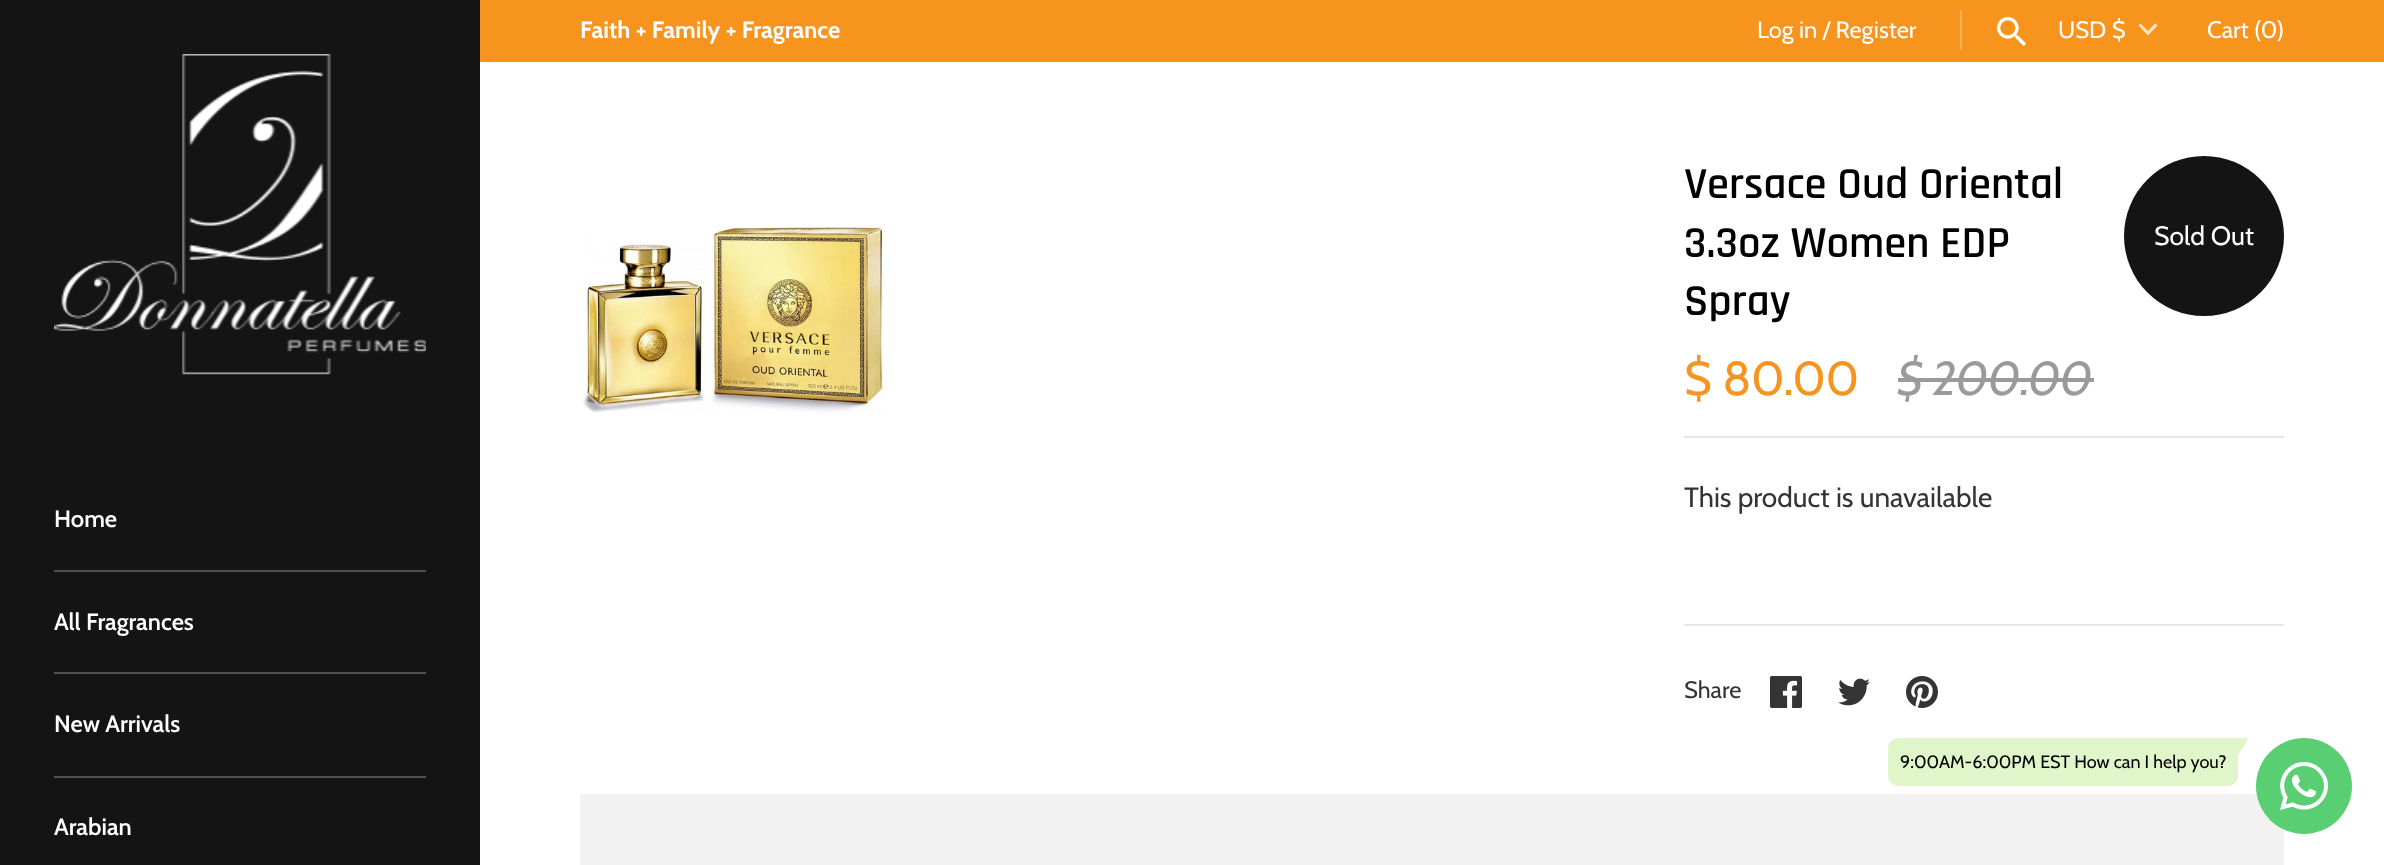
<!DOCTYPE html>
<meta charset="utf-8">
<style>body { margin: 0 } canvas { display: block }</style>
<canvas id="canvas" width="2384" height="865"></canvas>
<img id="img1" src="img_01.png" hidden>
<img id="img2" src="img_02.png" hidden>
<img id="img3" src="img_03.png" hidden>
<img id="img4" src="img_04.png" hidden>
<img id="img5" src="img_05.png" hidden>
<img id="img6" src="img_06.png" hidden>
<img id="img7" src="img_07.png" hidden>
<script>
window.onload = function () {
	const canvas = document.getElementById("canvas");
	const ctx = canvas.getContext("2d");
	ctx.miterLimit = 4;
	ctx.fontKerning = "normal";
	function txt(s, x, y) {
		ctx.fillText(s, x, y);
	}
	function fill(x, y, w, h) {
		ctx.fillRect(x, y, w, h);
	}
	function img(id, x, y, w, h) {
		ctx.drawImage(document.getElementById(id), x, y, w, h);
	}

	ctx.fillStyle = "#FFFFFF";
	fill(0, 0, 2384, 865);
	ctx.fillStyle = "#F7941D";
	fill(480, 0, 1904, 62);
	ctx.fillStyle = "#F9AF56";
	fill(1960, 10, 2, 40);
	img("img1", 1997, 17, 30, 30);
	ctx.fillStyle = "#FDE4C7";
	ctx.beginPath();
	ctx.moveTo(2140.5, 23.5);
	ctx.lineTo(2148, 31);
	ctx.lineTo(2155, 23.5);
	ctx.lineTo(2157.5, 25.5);
	ctx.lineTo(2148, 35.5);
	ctx.lineTo(2138.5, 25.5);
	ctx.closePath();
	ctx.fill();
	ctx.fillStyle = "#141414";
	fill(0, 0, 480, 865);
	img("img2", 54, 54, 372, 321);
	ctx.fillStyle = "#4F4F4F";
	fill(54, 570, 372, 2);
	fill(54, 672, 372, 2);
	fill(54, 776, 372, 2);
	img("img3", 583, 226, 301, 187);
	ctx.fillStyle = "#141414";
	ctx.beginPath();
	ctx.arc(2204, 236, 80, 0, Math.PI * 2);
	ctx.fill();
	ctx.fillStyle = "#9A9A9A";
	fill(1898, 378, 196, 4);
	ctx.fillStyle = "#E7E7E7";
	fill(1684, 436, 600, 2);
	fill(1684, 624, 600, 2);
	img("img4", 1770, 676, 32, 32);
	img("img5", 1838, 678, 32, 28);
	img("img6", 1906, 676, 32, 32);
	ctx.fillStyle = "#F2F2F2";
	fill(580, 794, 1704, 71);
	ctx.fillStyle = "#E0F6CA";
	ctx.beginPath();
	ctx.roundRect(1888, 738, 350, 48, [10, 0, 10, 10]);
	ctx.fill();
	ctx.beginPath();
	ctx.moveTo(2238, 738);
	ctx.lineTo(2248.5, 738);
	ctx.lineTo(2238, 756);
	ctx.closePath();
	ctx.fill();
	ctx.fillStyle = "#59CE72";
	ctx.beginPath();
	ctx.arc(2304, 786, 48, 0, Math.PI * 2);
	ctx.fill();
	img("img7", 2280, 762, 48, 48);
	ctx.font = "bold 23.75px Cabin";
	ctx.fillStyle = "#FFFFFF";
	txt("Faith + Family + Fragrance", 580, 38);
	ctx.font = "23.75px Cabin";
	txt("Log in / Register", 1757, 38);
	txt("USD $", 2058, 38);
	txt("Cart (0)", 2207, 38);
	ctx.font = "600 23.75px Cabin";
	txt("Home", 54, 527);
	txt("All Fragrances", 54, 630);
	txt("New Arrivals", 54, 732);
	txt("Arabian", 54, 835);
	ctx.font = "600 44.75px Rajdhani";
	ctx.fillStyle = "#000000";
	txt("Versace Oud Oriental", 1684, 198);
	txt("3.3oz Women EDP", 1684, 257);
	txt("Spray", 1684, 315);
	ctx.font = "26.5px Cabin";
	ctx.fillStyle = "#FFFFFF";
	txt("Sold Out", 2154, 245);
	ctx.font = "47.5px Cabin";
	ctx.fillStyle = "#F7941D";
	txt("$ 80.00", 1684, 395);
	ctx.font = "italic 47.5px Cabin";
	ctx.fillStyle = "#9A9A9A";
	txt("$ 200.00", 1898, 395);
	ctx.font = "28px Cabin";
	ctx.fillStyle = "#343434";
	txt("This product is unavailable", 1684, 507);
	ctx.font = "23.75px Cabin";
	txt("Share", 1684, 698);
	ctx.font = "18px Cabin";
	ctx.fillStyle = "#000000";
	txt("9:00AM-6:00PM EST How can I help you?", 1900, 768);
};
</script>
